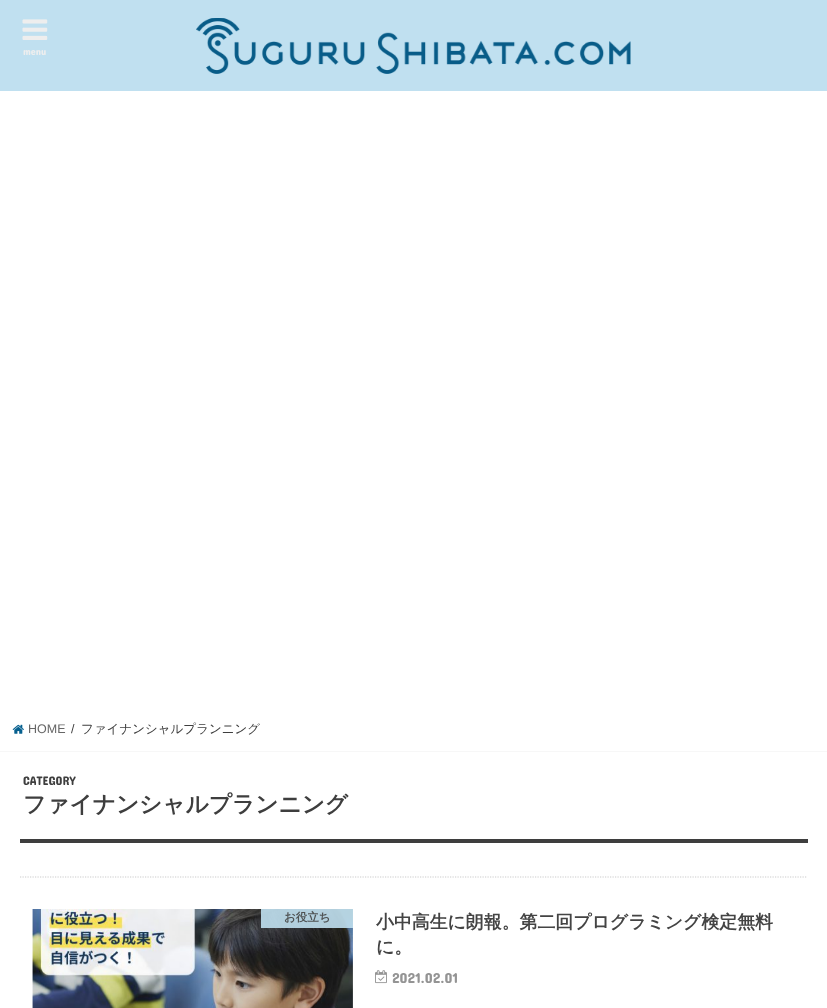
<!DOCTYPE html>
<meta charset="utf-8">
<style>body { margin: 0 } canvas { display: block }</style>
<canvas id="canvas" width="827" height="1008"></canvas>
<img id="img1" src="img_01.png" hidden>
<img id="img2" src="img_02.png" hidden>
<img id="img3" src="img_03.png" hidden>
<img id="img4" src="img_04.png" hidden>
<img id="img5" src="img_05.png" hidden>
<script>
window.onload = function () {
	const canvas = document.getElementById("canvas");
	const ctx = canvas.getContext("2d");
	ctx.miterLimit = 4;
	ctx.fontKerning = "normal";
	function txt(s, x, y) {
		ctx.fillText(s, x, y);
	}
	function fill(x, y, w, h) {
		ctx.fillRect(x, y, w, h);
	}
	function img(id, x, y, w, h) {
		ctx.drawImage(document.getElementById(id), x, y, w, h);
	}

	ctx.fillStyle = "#FFFFFF";
	fill(0, 0, 827, 1008);
	ctx.fillStyle = "#C0E0F0";
	fill(0, 0, 827, 91);
	img("img1", 22, 19, 26, 21);
	img("img2", 196, 18, 435, 56);
	ctx.fillStyle = "#F7F7F7";
	fill(0, 751, 827, 1);
	img("img3", 12, 724, 12, 10);
	ctx.fillStyle = "#DDDDDD";
	ctx.filter = "blur(0.5px)";
	ctx.beginPath();
	ctx.rect(0, 753, 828, 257);
	ctx.fill();
	ctx.filter = "none";
	ctx.fillStyle = "#FFFFFF";
	fill(0, 753, 827, 255);
	ctx.fillStyle = "#3E3E3E";
	fill(20, 839, 788, 4);
	ctx.beginPath();
	ctx.moveTo(20, 877);
	ctx.lineTo(807.5, 877);
	ctx.strokeStyle = "#CCCCCC";
	ctx.lineWidth = 1.2;
	ctx.setLineDash([1.25, 1.25]);
	ctx.stroke();
	img("img4", 32, 909, 321, 99);
	ctx.fillStyle = "rgba(192, 224, 240, 0.9)";
	fill(261, 909, 92, 19);
	img("img5", 375, 970, 12, 14);
	ctx.font = "10px Concert One";
	ctx.fillStyle = "#EEEEEE";
	txt("menu", 23, 55);
	ctx.font = "12.5px Liberation Sans";
	ctx.fillStyle = "#666666";
	txt("HOME", 28, 733);
	ctx.fillStyle = "#3E3E3E";
	txt("/", 71, 733);
	ctx.font = "500 12.5px WenQuanYi Zen Hei";
	txt("ファイナンシャルプランニング", 81, 733);
	ctx.font = "12.5px Concert One";
	txt("CATEGORY", 23, 785);
	ctx.font = "bold 22.7px WenQuanYi Zen Hei";
	txt("ファイナンシャルプランニング", 23, 812);
	ctx.font = "bold 11.5px WenQuanYi Zen Hei";
	ctx.fillStyle = "#4F5253";
	txt("お役立ち", 284, 921);
	ctx.font = "bold 17.9px WenQuanYi Zen Hei";
	ctx.fillStyle = "#444444";
	txt("小中高生に朗報。第二回プログラミング検定無料", 376, 928);
	txt("に。", 376, 953);
	ctx.font = "14.5px Concert One";
	ctx.fillStyle = "#949494";
	txt("2021.02.01", 392, 983);
};
</script>
